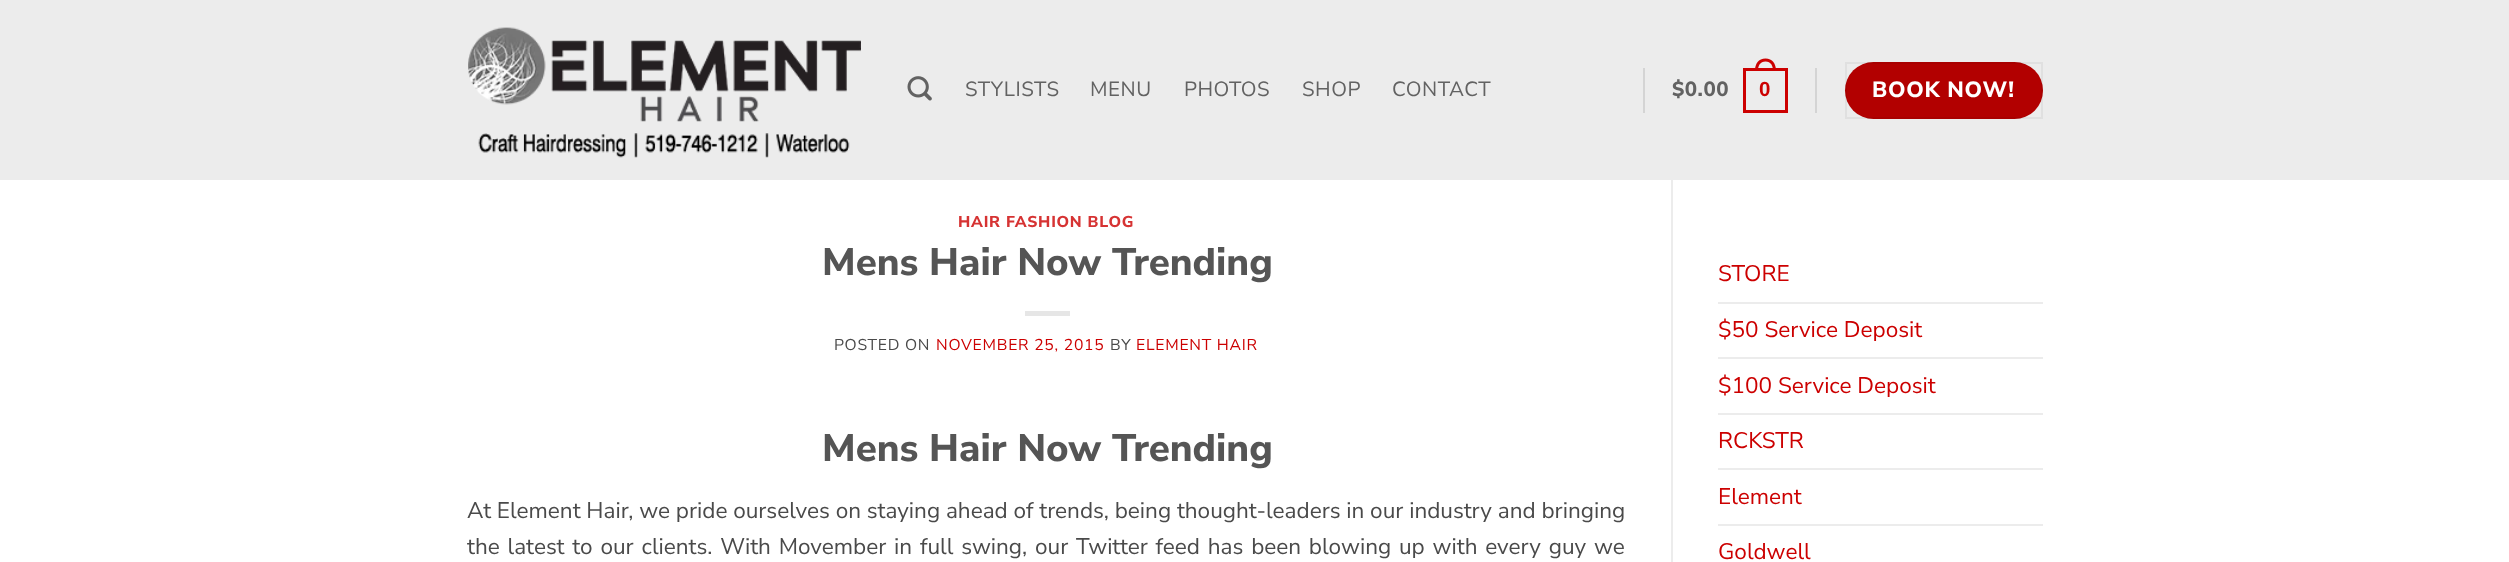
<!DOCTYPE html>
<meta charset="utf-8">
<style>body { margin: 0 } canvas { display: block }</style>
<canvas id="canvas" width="2509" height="562"></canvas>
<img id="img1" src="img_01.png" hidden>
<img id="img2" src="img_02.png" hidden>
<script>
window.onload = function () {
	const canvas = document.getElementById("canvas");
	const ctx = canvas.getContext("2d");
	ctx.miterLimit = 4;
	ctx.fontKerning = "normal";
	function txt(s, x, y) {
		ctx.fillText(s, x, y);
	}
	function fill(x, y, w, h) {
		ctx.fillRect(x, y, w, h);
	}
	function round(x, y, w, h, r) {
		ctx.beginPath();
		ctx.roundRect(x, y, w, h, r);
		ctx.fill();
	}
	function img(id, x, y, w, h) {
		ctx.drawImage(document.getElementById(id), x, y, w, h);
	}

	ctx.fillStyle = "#FFFFFF";
	fill(0, 0, 2509, 562);
	ctx.fillStyle = "#ECECEC";
	fill(0, 0, 2509, 180);
	img("img1", 468, 27, 393, 131);
	img("img2", 907, 76, 25, 25);
	ctx.fillStyle = "#D4D4D4";
	fill(1643, 68, 2, 45);
	ctx.strokeStyle = "#CC0000";
	ctx.lineWidth = 3;
	ctx.strokeRect(1744.5, 69.5, 42, 42);
	ctx.fillStyle = "#CC0000";
	ctx.beginPath();
	ctx.moveTo(1765.5, 58.5);
	ctx.bezierCurveTo(1772.5, 58.5, 1776, 64, 1776, 70.5);
	ctx.lineTo(1755, 70.5);
	ctx.bezierCurveTo(1755, 64, 1758.5, 58.5, 1765.5, 58.5);
	ctx.closePath();
	ctx.moveTo(1765.5, 61.5);
	ctx.bezierCurveTo(1771, 61.5, 1773, 66, 1773, 70.5);
	ctx.lineTo(1758, 70.5);
	ctx.bezierCurveTo(1758, 66, 1760, 61.5, 1765.5, 61.5);
	ctx.closePath();
	ctx.fill("evenodd");
	ctx.fillStyle = "#D4D4D4";
	fill(1815, 68, 2, 45);
	ctx.fillStyle = "#B20000";
	round(1845, 62, 198, 57, 28.5);
	ctx.strokeStyle = "rgba(0, 0, 0, 0.05)";
	ctx.lineWidth = 2;
	ctx.strokeRect(1846, 63, 196, 55);
	ctx.fillStyle = "#E6E6E6";
	fill(1025, 311, 45, 5);
	ctx.fillStyle = "#ECECEC";
	fill(1671, 180, 2, 382);
	fill(1718, 302, 325, 2);
	fill(1718, 357, 325, 2);
	fill(1718, 413, 325, 2);
	fill(1718, 468, 325, 2);
	fill(1718, 524, 325, 2);
	ctx.letterSpacing = "0.5px";
	ctx.font = "20.5px Nunito Sans";
	ctx.fillStyle = "#626262";
	txt("STYLISTS", 965, 96);
	txt("MENU", 1090, 96);
	txt("PHOTOS", 1184, 96);
	txt("SHOP", 1302, 96);
	txt("CONTACT", 1392, 96);
	ctx.font = "800 20.5px Nunito Sans";
	txt("$0.00", 1672, 96);
	ctx.font = "bold 20.5px Liberation Sans";
	ctx.fillStyle = "#CC0000";
	txt("0", 1759, 96);
	ctx.letterSpacing = "0.75px";
	ctx.font = "800 22px Nunito Sans";
	ctx.fillStyle = "#FFFFFF";
	txt("BOOK NOW!", 1872, 97);
	ctx.font = "800 15.75px Nunito Sans";
	ctx.fillStyle = "#D63333";
	txt("HAIR FASHION BLOG", 958, 227);
	ctx.letterSpacing = "0px";
	ctx.font = "800 38.4px Nunito Sans";
	ctx.fillStyle = "#555555";
	txt("Mens Hair Now Trending", 822, 275);
	ctx.letterSpacing = "0.75px";
	ctx.font = "15.75px Nunito Sans";
	ctx.fillStyle = "#4A4A4A";
	txt("POSTED ON", 834, 350);
	ctx.fillStyle = "#CC0000";
	txt("NOVEMBER 25, 2015", 936, 350);
	ctx.fillStyle = "#4A4A4A";
	txt("BY", 1110, 350);
	ctx.fillStyle = "#CC0000";
	txt("ELEMENT HAIR", 1136, 350);
	ctx.letterSpacing = "0px";
	ctx.font = "800 38.4px Nunito Sans";
	ctx.fillStyle = "#555555";
	txt("Mens Hair Now Trending", 822, 461);
	ctx.font = "22.55px Nunito Sans";
	ctx.fillStyle = "#4A4A4A";
	txt("At Element Hair, we pride ourselves on staying ahead of trends, being thought-leaders in our industry and bringing", 467, 518);
	ctx.wordSpacing = "2px";
	txt("the latest to our clients. With Movember in full swing, our Twitter feed has been blowing up with every guy we", 467, 554);
	ctx.wordSpacing = "0px";
	ctx.fillStyle = "#CC0000";
	txt("STORE", 1718, 281);
	txt("$50 Service Deposit", 1718, 337);
	txt("$100 Service Deposit", 1718, 393);
	txt("RCKSTR", 1718, 448);
	txt("Element", 1718, 504);
	txt("Goldwell", 1718, 559);
};
</script>
